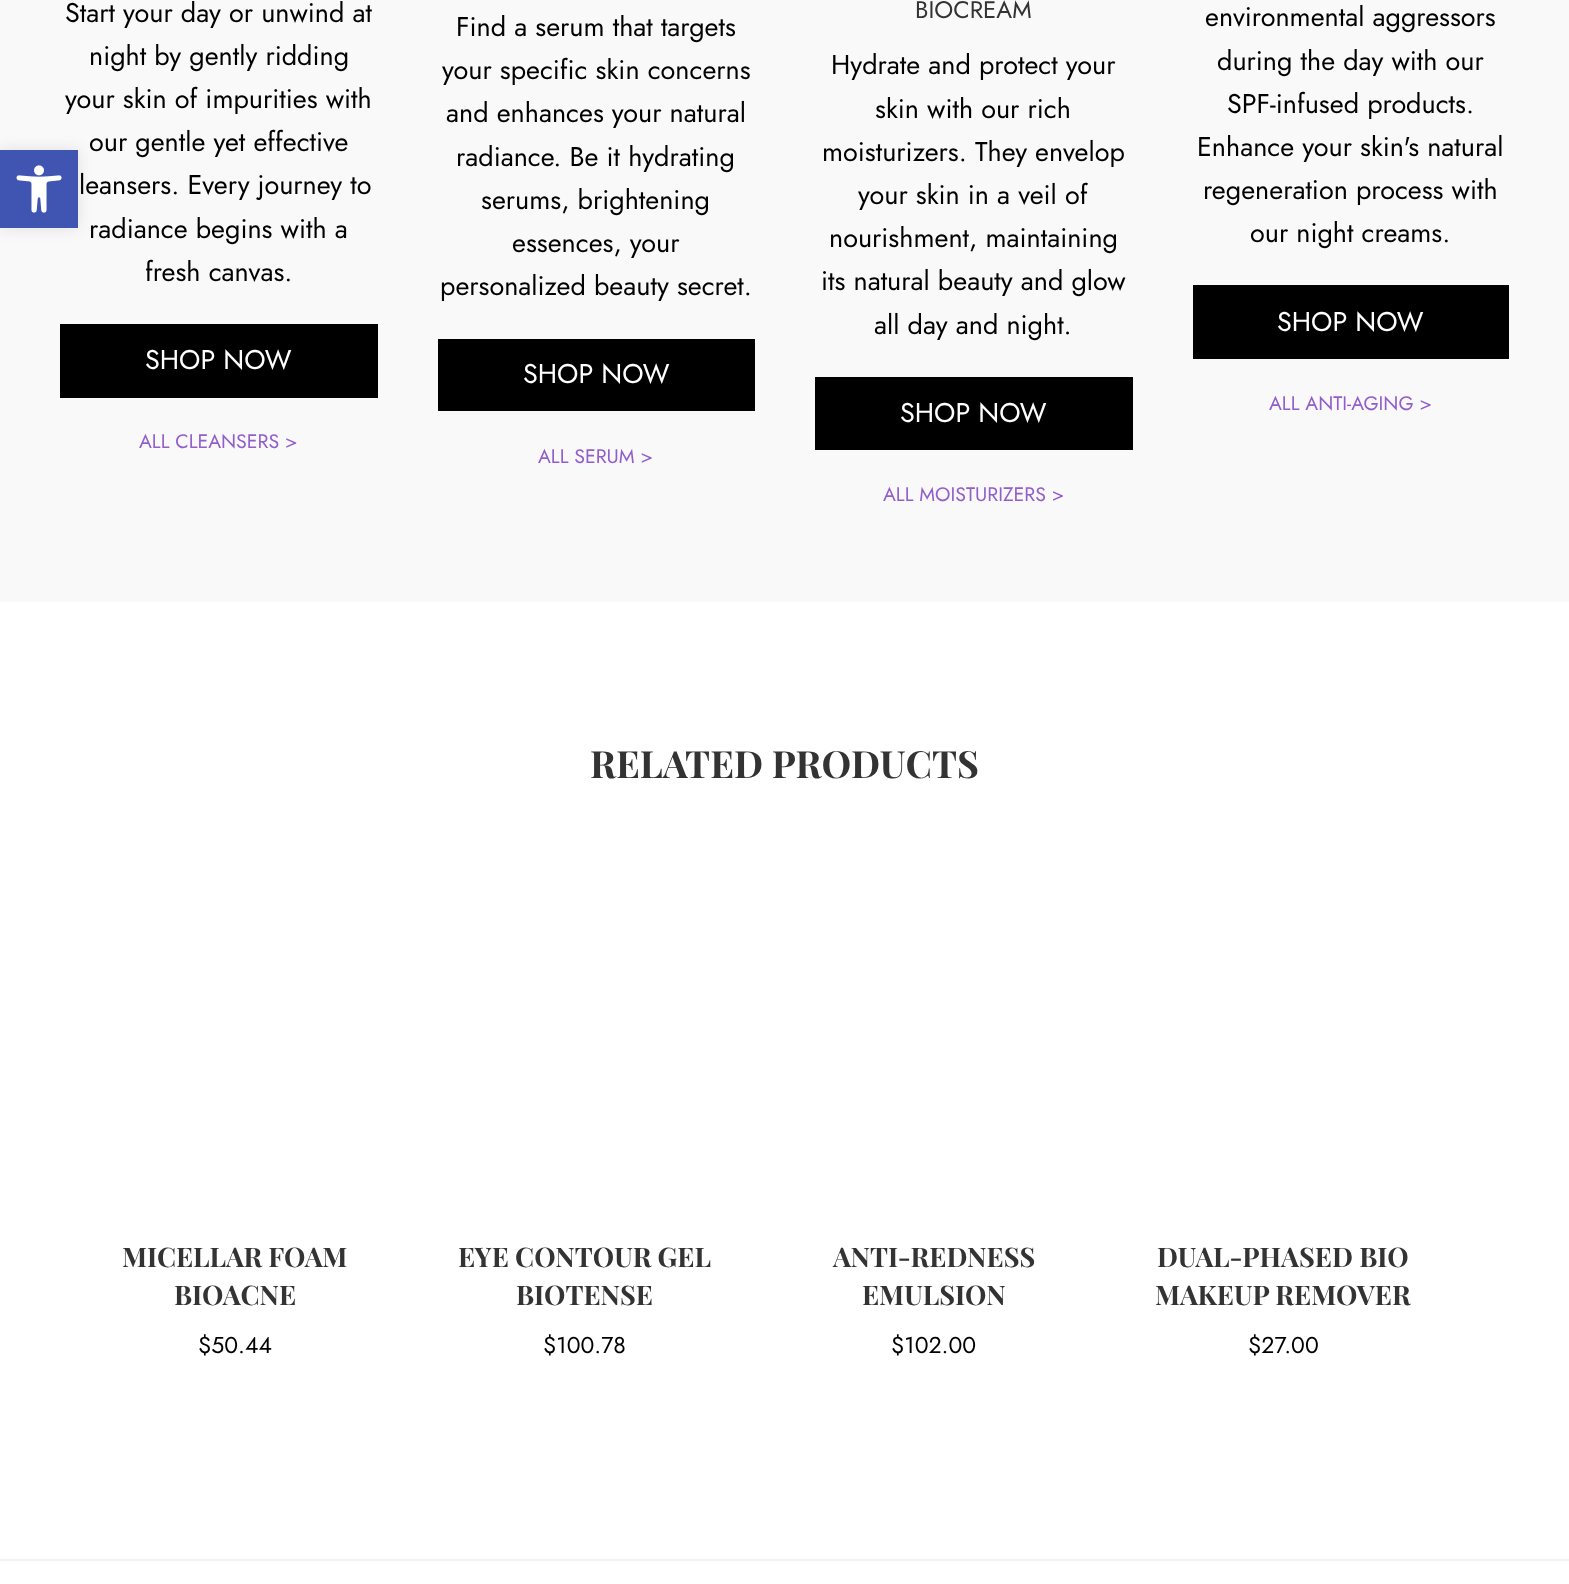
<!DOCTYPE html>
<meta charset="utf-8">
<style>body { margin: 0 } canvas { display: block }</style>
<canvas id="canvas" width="1569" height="1584"></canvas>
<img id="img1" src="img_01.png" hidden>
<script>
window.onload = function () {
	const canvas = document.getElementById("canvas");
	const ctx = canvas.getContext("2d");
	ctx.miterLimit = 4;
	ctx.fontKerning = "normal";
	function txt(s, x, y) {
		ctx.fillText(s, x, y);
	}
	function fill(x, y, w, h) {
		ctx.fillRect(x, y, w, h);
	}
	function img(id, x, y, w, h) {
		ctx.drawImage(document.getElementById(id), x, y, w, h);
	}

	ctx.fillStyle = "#FFFFFF";
	fill(0, 0, 1569, 1584);
	ctx.fillStyle = "#F9F9F9";
	fill(0, 0, 1569, 602);
	ctx.fillStyle = "rgba(0, 0, 0, 0.1)";
	ctx.filter = "blur(7.5px)";
	ctx.beginPath();
	ctx.rect(0, 150, 78, 78);
	ctx.fill();
	ctx.filter = "none";
	ctx.fillStyle = "#4054B2";
	fill(0, 150, 78, 78);
	img("img1", 16, 165, 46, 48);
	ctx.fillStyle = "#000000";
	fill(60, 324, 318, 74);
	fill(438, 339, 317, 72);
	fill(815, 377, 318, 73);
	fill(1193, 285, 316, 74);
	ctx.fillStyle = "#F2F2F2";
	fill(0, 1559, 1569, 2);
	ctx.font = "27px Jost";
	ctx.fillStyle = "#000000";
	txt("Start your day or unwind at", 65, 22);
	txt("night by gently ridding", 89, 65);
	txt("your skin of impurities with", 65, 108);
	txt("our gentle yet effective", 89, 151);
	txt("leansers. Every journey to", 79, 194);
	txt("radiance begins with a", 89, 238);
	txt("fresh canvas.", 145, 281);
	ctx.fillStyle = "#FFFFFF";
	txt("SHOP NOW", 145, 369);
	ctx.font = "19.5px Jost";
	ctx.fillStyle = "#925ECC";
	txt("ALL CLEANSERS >", 139, 448);
	ctx.font = "27px Jost";
	ctx.fillStyle = "#000000";
	txt("Find a serum that targets", 456, 36);
	txt("your specific skin concerns", 442, 79);
	txt("and enhances your natural", 446, 122);
	txt("radiance. Be it hydrating", 456, 166);
	txt("serums, brightening", 481, 209);
	txt("essences, your", 512, 252);
	txt("personalized beauty secret.", 440, 295);
	ctx.fillStyle = "#FFFFFF";
	txt("SHOP NOW", 523, 383);
	ctx.font = "19.5px Jost";
	ctx.fillStyle = "#925ECC";
	txt("ALL SERUM >", 538, 463);
	ctx.font = "24px Jost";
	ctx.fillStyle = "#333333";
	txt("BIOCREAM", 915, 18);
	ctx.font = "27px Jost";
	ctx.fillStyle = "#000000";
	txt("Hydrate and protect your", 831, 74);
	txt("skin with our rich", 875, 118);
	txt("moisturizers. They envelop", 822, 161);
	txt("your skin in a veil of", 858, 204);
	txt("nourishment, maintaining", 829, 247);
	txt("its natural beauty and glow", 821, 290);
	txt("all day and night.", 874, 334);
	ctx.fillStyle = "#FFFFFF";
	txt("SHOP NOW", 900, 422);
	ctx.font = "19.5px Jost";
	ctx.fillStyle = "#925ECC";
	txt("ALL MOISTURIZERS >", 883, 501);
	ctx.font = "27px Jost";
	ctx.fillStyle = "#000000";
	txt("environmental aggressors", 1205, 26);
	txt("during the day with our", 1217, 70);
	txt("SPF-infused products.", 1227, 113);
	txt("Enhance your skin's natural", 1197, 156);
	txt("regeneration process with", 1203, 199);
	txt("our night creams.", 1250, 242);
	ctx.fillStyle = "#FFFFFF";
	txt("SHOP NOW", 1277, 331);
	ctx.font = "19.5px Jost";
	ctx.fillStyle = "#925ECC";
	txt("ALL ANTI-AGING >", 1269, 410);
	ctx.font = "bold 37.5px Playfair Display";
	ctx.fillStyle = "#333333";
	txt("RELATED PRODUCTS", 590, 778);
	ctx.font = "bold 27px Playfair Display";
	txt("MICELLAR FOAM", 122, 1267);
	txt("BIOACNE", 174, 1305);
	ctx.font = "23px Jost";
	ctx.fillStyle = "#000000";
	txt("$50.44", 198, 1353);
	ctx.font = "bold 27px Playfair Display";
	ctx.fillStyle = "#333333";
	txt("EYE CONTOUR GEL", 458, 1267);
	txt("BIOTENSE", 516, 1305);
	ctx.font = "23px Jost";
	ctx.fillStyle = "#000000";
	txt("$100.78", 543, 1353);
	ctx.font = "bold 27px Playfair Display";
	ctx.fillStyle = "#333333";
	txt("ANTI-REDNESS", 833, 1267);
	txt("EMULSION", 862, 1305);
	ctx.font = "23px Jost";
	ctx.fillStyle = "#000000";
	txt("$102.00", 891, 1353);
	ctx.font = "bold 27px Playfair Display";
	ctx.fillStyle = "#333333";
	txt("DUAL-PHASED BIO", 1157, 1267);
	txt("MAKEUP REMOVER", 1155, 1305);
	ctx.font = "23px Jost";
	ctx.fillStyle = "#000000";
	txt("$27.00", 1248, 1353);
};
</script>
